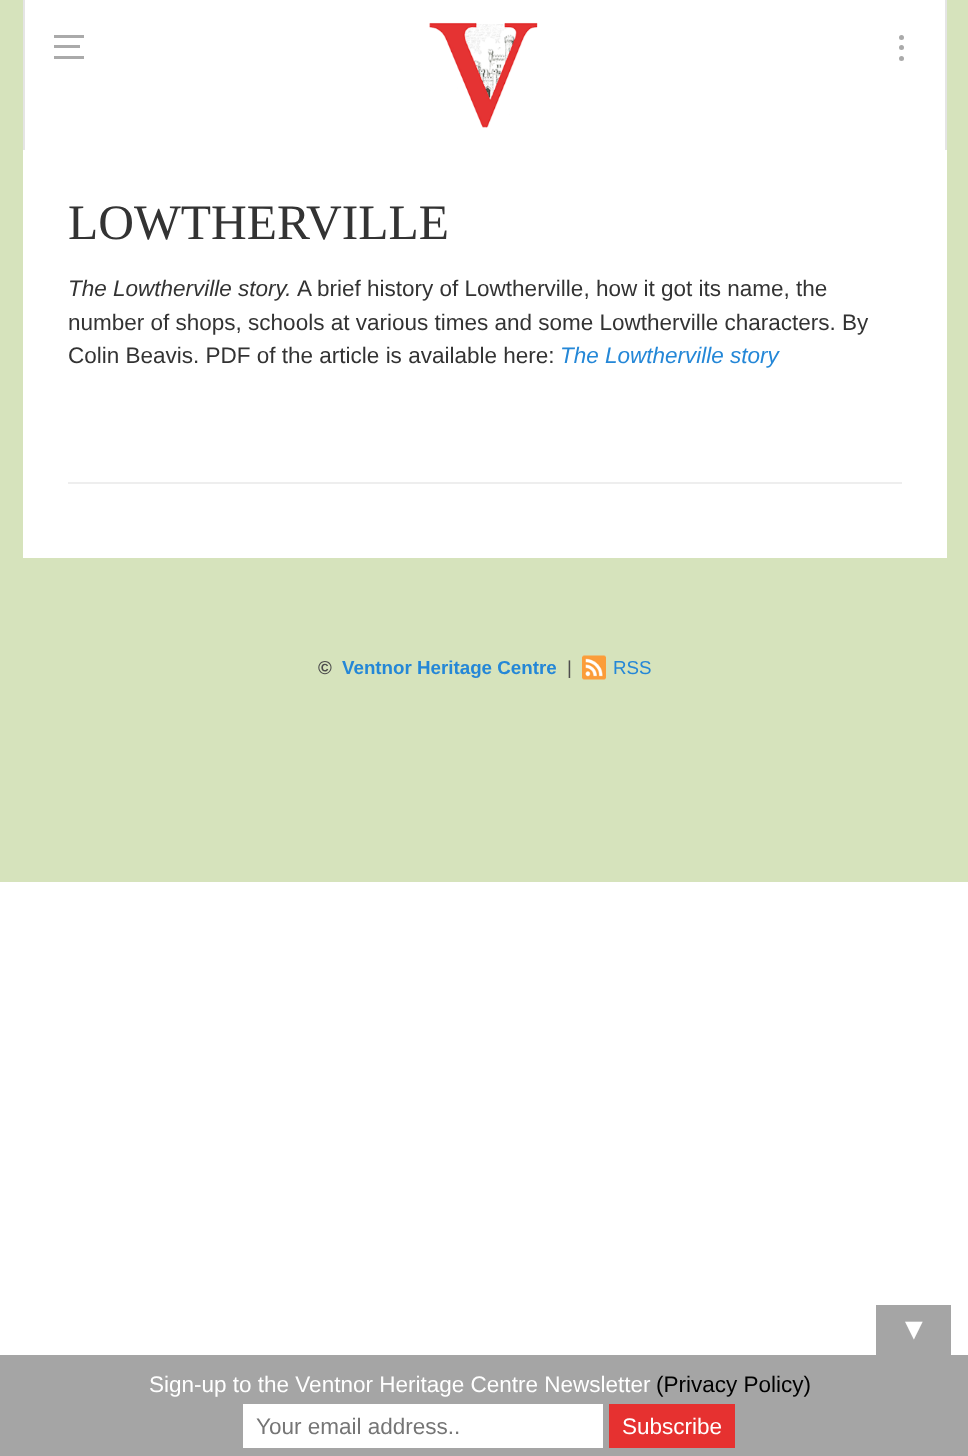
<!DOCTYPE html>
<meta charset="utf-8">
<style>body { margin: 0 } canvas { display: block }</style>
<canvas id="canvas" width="968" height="1456"></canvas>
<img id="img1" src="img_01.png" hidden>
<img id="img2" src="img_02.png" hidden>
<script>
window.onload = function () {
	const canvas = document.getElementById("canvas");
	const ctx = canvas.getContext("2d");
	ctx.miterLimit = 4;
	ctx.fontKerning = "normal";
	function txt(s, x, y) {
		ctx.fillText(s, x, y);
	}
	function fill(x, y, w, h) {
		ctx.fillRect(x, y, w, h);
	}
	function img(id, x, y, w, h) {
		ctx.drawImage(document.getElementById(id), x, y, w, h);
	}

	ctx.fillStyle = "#FFFFFF";
	fill(0, 0, 968, 1456);
	ctx.fillStyle = "#D6E3BC";
	fill(0, 0, 968, 882);
	ctx.fillStyle = "#FFFFFF";
	fill(25, 0, 920, 150);
	ctx.fillStyle = "#E5E5E5";
	fill(945, 0, 2, 150);
	fill(23, 0, 2, 150);
	img("img1", 429, 22, 109, 106);
	ctx.fillStyle = "#AAAAAA";
	fill(54, 35, 30, 3);
	fill(54, 45, 26, 3);
	fill(54, 56, 30, 3);
	ctx.beginPath();
	ctx.arc(901.5, 37.5, 2.5, 0, Math.PI * 2);
	ctx.fill();
	ctx.beginPath();
	ctx.arc(901.5, 47.5, 2.5, 0, Math.PI * 2);
	ctx.fill();
	ctx.beginPath();
	ctx.arc(901.5, 58.5, 2.5, 0, Math.PI * 2);
	ctx.fill();
	ctx.fillStyle = "#FFFFFF";
	fill(23, 150, 924, 408);
	ctx.fillStyle = "#EEEEEE";
	fill(68, 482, 834, 2);
	img("img2", 582, 655, 24, 25);
	ctx.fillStyle = "#A5A5A5";
	fill(876, 1305, 75, 50);
	fill(0, 1355, 968, 101);
	ctx.fillStyle = "#FFFFFF";
	fill(243, 1404, 360, 44);
	ctx.fillStyle = "#E63130";
	fill(609, 1404, 126, 44);
	ctx.font = "49.5px Liberation Serif";
	ctx.fillStyle = "#333333";
	txt("LOWTHERVILLE", 68, 239);
	ctx.font = "italic 22.5px Liberation Sans";
	txt("The Lowtherville story.", 68, 296);
	ctx.font = "22.5px Liberation Sans";
	txt("A brief history of Lowtherville, how it got its name, the", 297, 296);
	txt("number of shops, schools at various times and some Lowtherville characters. By", 68, 330);
	txt("Colin Beavis. PDF of the article is available here:", 68, 363);
	ctx.font = "italic 22.5px Liberation Sans";
	ctx.fillStyle = "#2487D7";
	txt("The Lowtherville story", 560, 363);
	ctx.font = "bold 18.75px Liberation Sans";
	ctx.fillStyle = "#4D4D4D";
	txt("©", 318, 674);
	ctx.fillStyle = "#2487D7";
	txt("Ventnor Heritage Centre", 342, 674);
	ctx.font = "18.75px Liberation Sans";
	ctx.fillStyle = "#4D4D4D";
	txt("|", 567, 674);
	ctx.fillStyle = "#2487D7";
	txt("RSS", 613, 674);
	ctx.font = "30px Liberation Sans";
	ctx.fillStyle = "#FFFFFF";
	txt("▼", 899, 1339);
	ctx.font = "22.5px Liberation Sans";
	txt("Sign-up to the Ventnor Heritage Centre Newsletter", 149, 1392);
	ctx.fillStyle = "#000000";
	txt("(Privacy Policy)", 656, 1392);
	ctx.fillStyle = "#757575";
	txt("Your email address..", 256, 1434);
	ctx.fillStyle = "#FFFFFF";
	txt("Subscribe", 622, 1434);
};
</script>
